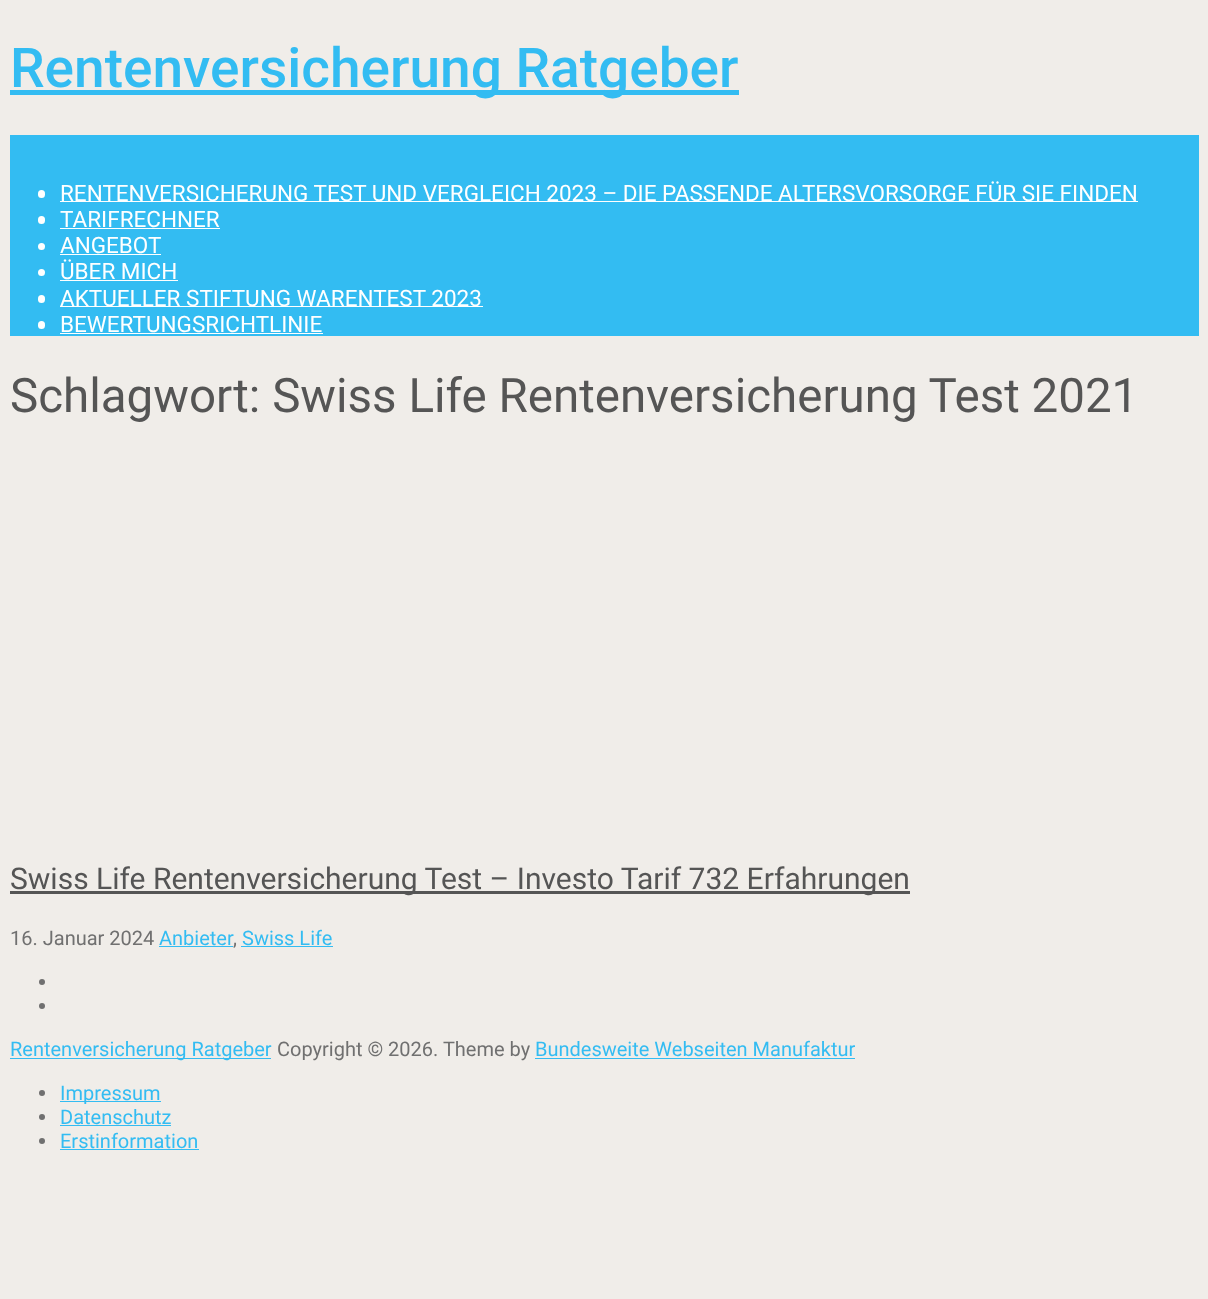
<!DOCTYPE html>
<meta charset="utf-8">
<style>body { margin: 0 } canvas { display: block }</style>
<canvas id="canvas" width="1208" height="1299"></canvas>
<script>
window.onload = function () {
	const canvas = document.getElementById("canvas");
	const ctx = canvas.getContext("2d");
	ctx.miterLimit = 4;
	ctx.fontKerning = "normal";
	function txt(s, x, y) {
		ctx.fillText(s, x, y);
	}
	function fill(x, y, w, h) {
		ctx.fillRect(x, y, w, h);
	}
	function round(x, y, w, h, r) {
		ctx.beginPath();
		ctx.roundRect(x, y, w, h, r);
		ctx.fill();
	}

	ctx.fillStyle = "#F0EDE9";
	fill(0, 0, 1208, 1299);
	ctx.fillStyle = "#33BCF2";
	fill(10, 90, 729, 5);
	fill(10, 135, 1189, 201);
	ctx.fillStyle = "#FFFFFF";
	round(38, 190, 7, 8, 3.5);
	fill(60, 201, 1078, 1);
	round(38, 216, 7, 8, 3.5);
	fill(60, 228, 160, 1);
	ctx.beginPath();
	ctx.arc(41.5, 246.5, 3.5, 0, Math.PI * 2);
	ctx.fill();
	fill(60, 254, 101, 1);
	ctx.beginPath();
	ctx.arc(41.5, 272.5, 3.5, 0, Math.PI * 2);
	ctx.fill();
	fill(60, 280, 118, 1);
	round(38, 295, 7, 8, 3.5);
	fill(60, 306, 423, 1);
	round(38, 321, 7, 8, 3.5);
	fill(60, 333, 263, 1);
	ctx.fillStyle = "#555555";
	fill(10, 891, 900, 3);
	ctx.fillStyle = "#33BCF2";
	fill(159, 946, 74, 1);
	fill(241, 946, 92, 1);
	ctx.fillStyle = "#707070";
	ctx.beginPath();
	ctx.arc(42, 982, 3, 0, Math.PI * 2);
	ctx.fill();
	ctx.beginPath();
	ctx.arc(42, 1006, 3, 0, Math.PI * 2);
	ctx.fill();
	ctx.fillStyle = "#33BCF2";
	fill(10, 1058, 261, 1);
	fill(535, 1058, 320, 1);
	ctx.fillStyle = "#707070";
	ctx.beginPath();
	ctx.arc(42, 1093, 3, 0, Math.PI * 2);
	ctx.fill();
	ctx.fillStyle = "#33BCF2";
	fill(60, 1101, 101, 1);
	ctx.fillStyle = "#707070";
	ctx.beginPath();
	ctx.arc(42, 1117, 3, 0, Math.PI * 2);
	ctx.fill();
	ctx.fillStyle = "#33BCF2";
	fill(60, 1125, 111, 1);
	ctx.fillStyle = "#707070";
	ctx.beginPath();
	ctx.arc(42, 1141, 3, 0, Math.PI * 2);
	ctx.fill();
	ctx.fillStyle = "#33BCF2";
	fill(60, 1149, 139, 1);
	ctx.font = "500 55px Roboto";
	txt("Rentenversicherung Ratgeber", 10, 87);
	ctx.font = "22.5px Roboto";
	ctx.fillStyle = "#FFFFFF";
	txt("RENTENVERSICHERUNG TEST UND VERGLEICH 2023 – DIE PASSENDE ALTERSVORSORGE FÜR SIE FINDEN", 60, 201);
	txt("TARIFRECHNER", 60, 227);
	txt("ANGEBOT", 60, 253);
	txt("ÜBER MICH", 60, 279);
	txt("AKTUELLER STIFTUNG WARENTEST 2023", 60, 306);
	txt("BEWERTUNGSRICHTLINIE", 60, 332);
	ctx.font = "47.5px Roboto";
	ctx.fillStyle = "#555555";
	txt("Schlagwort: Swiss Life Rentenversicherung Test 2021", 10, 412);
	ctx.font = "30px Roboto";
	txt("Swiss Life Rentenversicherung Test – Investo Tarif 732 Erfahrungen", 10, 889);
	ctx.font = "20px Roboto";
	ctx.fillStyle = "#707070";
	txt("16. Januar 2024", 10, 945);
	ctx.fillStyle = "#33BCF2";
	txt("Anbieter", 159, 945);
	ctx.fillStyle = "#707070";
	txt(",", 233, 945);
	ctx.fillStyle = "#33BCF2";
	txt("Swiss Life", 242, 945);
	txt("Rentenversicherung Ratgeber", 10, 1056);
	ctx.fillStyle = "#707070";
	txt("Copyright © 2026. Theme by", 277, 1056);
	ctx.fillStyle = "#33BCF2";
	txt("Bundesweite Webseiten Manufaktur", 535, 1056);
	txt("Impressum", 60, 1100);
	txt("Datenschutz", 60, 1124);
	txt("Erstinformation", 60, 1148);
};
</script>
